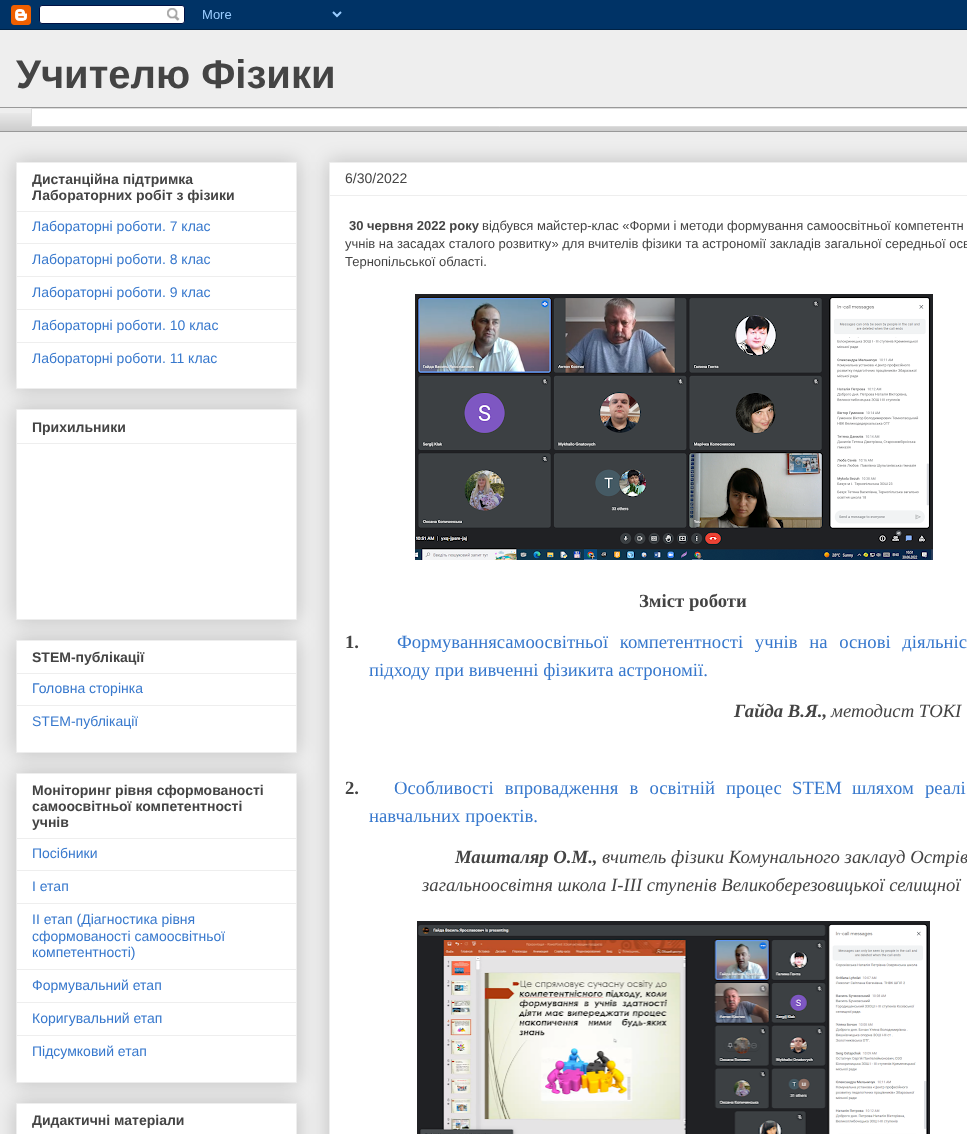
<!DOCTYPE html>
<meta charset="utf-8">
<style>body { margin: 0 } canvas { display: block }</style>
<canvas id="canvas" width="967" height="1134"></canvas>
<img id="img1" src="img_01.png" hidden>
<img id="img2" src="img_02.png" hidden>
<img id="img3" src="img_03.png" hidden>
<img id="img4" src="img_04.png" hidden>
<script>
window.onload = function () {
	const canvas = document.getElementById("canvas");
	const ctx = canvas.getContext("2d");
	ctx.miterLimit = 4;
	ctx.fontKerning = "normal";
	function txt(s, x, y) {
		ctx.fillText(s, x, y);
	}
	function fill(x, y, w, h) {
		ctx.fillRect(x, y, w, h);
	}
	function img(id, x, y, w, h) {
		ctx.drawImage(document.getElementById(id), x, y, w, h);
	}

	ctx.fillStyle = "#EEEEEE";
	fill(0, 0, 967, 1134);
	img("img1", 0, 0, 967, 30);
	img("img2", 0, 113, 967, 18);
	ctx.fillStyle = "#999999";
	fill(0, 107, 967, 1);
	ctx.fillStyle = "#FFFFFF";
	ctx.beginPath();
	ctx.rect(31.5, 108.5, 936, 18);
	ctx.fill();
	ctx.strokeStyle = "#DDDDDD";
	ctx.stroke();
	ctx.fillStyle = "#999999";
	fill(0, 131, 967, 1);
	ctx.fillStyle = "rgba(0, 0, 0, 0.2)";
	ctx.filter = "blur(10px)";
	ctx.beginPath();
	ctx.rect(16, 162, 281, 227);
	ctx.fill();
	ctx.filter = "none";
	ctx.fillStyle = "#FFFFFF";
	ctx.beginPath();
	ctx.rect(16.5, 162.5, 280, 226);
	ctx.fill();
	ctx.strokeStyle = "#EEEEEE";
	ctx.stroke();
	ctx.fillStyle = "#EEEEEE";
	fill(17, 211, 279, 1);
	fill(17, 243, 279, 1);
	fill(17, 276, 279, 1);
	fill(17, 309, 279, 1);
	fill(17, 342, 279, 1);
	ctx.fillStyle = "rgba(0, 0, 0, 0.2)";
	ctx.filter = "blur(10px)";
	ctx.beginPath();
	ctx.rect(16, 409, 281, 211);
	ctx.fill();
	ctx.filter = "none";
	ctx.fillStyle = "#FFFFFF";
	ctx.beginPath();
	ctx.rect(16.5, 409.5, 280, 210);
	ctx.fill();
	ctx.stroke();
	ctx.fillStyle = "#EEEEEE";
	fill(17, 443, 279, 1);
	ctx.fillStyle = "rgba(0, 0, 0, 0.2)";
	ctx.filter = "blur(10px)";
	ctx.beginPath();
	ctx.rect(16, 640, 281, 113);
	ctx.fill();
	ctx.filter = "none";
	ctx.fillStyle = "#FFFFFF";
	ctx.beginPath();
	ctx.rect(16.5, 640.5, 280, 112);
	ctx.fill();
	ctx.stroke();
	ctx.fillStyle = "#EEEEEE";
	fill(17, 673, 279, 1);
	fill(17, 705, 279, 1);
	ctx.fillStyle = "rgba(0, 0, 0, 0.2)";
	ctx.filter = "blur(10px)";
	ctx.beginPath();
	ctx.rect(16, 773, 281, 310);
	ctx.fill();
	ctx.filter = "none";
	ctx.fillStyle = "#FFFFFF";
	ctx.beginPath();
	ctx.rect(16.5, 773.5, 280, 309);
	ctx.fill();
	ctx.stroke();
	ctx.fillStyle = "#EEEEEE";
	fill(17, 838, 279, 1);
	fill(17, 870, 279, 1);
	fill(17, 903, 279, 1);
	fill(17, 969, 279, 1);
	fill(17, 1002, 279, 1);
	fill(17, 1035, 279, 1);
	ctx.fillStyle = "rgba(0, 0, 0, 0.2)";
	ctx.filter = "blur(10px)";
	ctx.beginPath();
	ctx.rect(16, 1103, 281, 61);
	ctx.fill();
	ctx.filter = "none";
	ctx.fillStyle = "#FFFFFF";
	ctx.beginPath();
	ctx.rect(16.5, 1103.5, 280, 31);
	ctx.fill();
	ctx.stroke();
	ctx.fillStyle = "rgba(0, 0, 0, 0.2)";
	ctx.filter = "blur(10px)";
	ctx.beginPath();
	ctx.rect(329, 162, 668, 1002);
	ctx.fill();
	ctx.filter = "none";
	ctx.fillStyle = "#FFFFFF";
	ctx.beginPath();
	ctx.rect(329.5, 162.5, 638, 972);
	ctx.fill();
	ctx.stroke();
	ctx.fillStyle = "#EEEEEE";
	fill(330, 195, 637, 1);
	img("img3", 415, 294, 518, 266);
	img("img4", 417, 921, 513, 213);
	ctx.font = "bold 40px Liberation Sans";
	ctx.fillStyle = "#444444";
	txt("Учителю Фізики", 16, 88);
	ctx.font = "bold 14px Liberation Sans";
	txt("Дистанційна підтримка", 32, 184);
	txt("Лабораторних робіт з фізики", 32, 200);
	ctx.font = "14px Liberation Sans";
	ctx.fillStyle = "#3778CD";
	txt("Лабораторні роботи. 7 клас", 32, 231);
	txt("Лабораторні роботи. 8 клас", 32, 264);
	txt("Лабораторні роботи. 9 клас", 32, 297);
	txt("Лабораторні роботи. 10 клас", 32, 330);
	txt("Лабораторні роботи. 11 клас", 32, 363);
	ctx.font = "bold 14px Liberation Sans";
	ctx.fillStyle = "#444444";
	txt("Прихильники", 32, 432);
	txt("STEM-публікації", 32, 662);
	ctx.font = "14px Liberation Sans";
	ctx.fillStyle = "#3778CD";
	txt("Головна сторінка", 32, 693);
	txt("STEM-публікації", 32, 726);
	ctx.font = "bold 14px Liberation Sans";
	ctx.fillStyle = "#444444";
	txt("Моніторинг рівня сформованості", 32, 795);
	txt("самоосвітньої компетентності", 32, 811);
	txt("учнів", 32, 827);
	ctx.font = "14px Liberation Sans";
	ctx.fillStyle = "#3778CD";
	txt("Посібники", 32, 858);
	txt("І етап", 32, 891);
	txt("ІІ етап (Діагностика рівня", 32, 924);
	txt("сформованості самоосвітньої", 32, 941);
	txt("компетентності)", 32, 957);
	txt("Формувальний етап", 32, 990);
	txt("Коригувальний етап", 32, 1023);
	txt("Підсумковий етап", 32, 1056);
	ctx.font = "bold 14px Liberation Sans";
	ctx.fillStyle = "#444444";
	txt("Дидактичні матеріали", 32, 1125);
	ctx.font = "14px Liberation Sans";
	txt("6/30/2022", 345, 183);
	ctx.font = "bold 13px Liberation Sans";
	txt("30 червня 2022 року", 349, 230);
	ctx.font = "13px Liberation Sans";
	txt("відбувся майстер-клас «Форми і методи формування самоосвітньої компетентн", 482, 230);
	txt("учнів на засадах сталого розвитку» для вчителів фізики та астрономії закладів загальної середньої осв", 345, 248);
	txt("Тернопільської області.", 345, 266);
	ctx.font = "bold 18.7px Liberation Serif";
	txt("Зміст роботи", 639, 607);
	txt("1.", 345, 648);
	ctx.wordSpacing = "7px";
	ctx.font = "18.7px Liberation Serif";
	ctx.fillStyle = "#3778CD";
	txt("Формуваннясамоосвітньої компетентності учнів на основі діяльніс", 397, 648);
	ctx.wordSpacing = "0px";
	txt("підходу при вивченні фізикита астрономії.", 369, 676);
	ctx.font = "italic bold 18.7px Liberation Serif";
	ctx.fillStyle = "#444444";
	txt("Гайда В.Я.,", 734, 717);
	ctx.font = "italic 18.7px Liberation Serif";
	txt("методист ТОКІ", 831, 717);
	ctx.font = "bold 18.7px Liberation Serif";
	txt("2.", 345, 794);
	ctx.wordSpacing = "6.5px";
	ctx.font = "18.7px Liberation Serif";
	ctx.fillStyle = "#3778CD";
	txt("Особливості впровадження в освітній процес", 394, 794);
	ctx.wordSpacing = "0px";
	txt("STEM", 792, 794);
	ctx.wordSpacing = "6.5px";
	txt("шляхом реалі", 852, 794);
	ctx.wordSpacing = "0px";
	txt("навчальних проектів.", 369, 822);
	ctx.font = "italic bold 18.7px Liberation Serif";
	ctx.fillStyle = "#444444";
	txt("Машталяр О.М.,", 455, 863);
	ctx.font = "italic 18.7px Liberation Serif";
	txt("вчитель фізики Комунального заклауд Острів", 602, 863);
	txt("загальноосвітня школа І-ІІІ ступенів Великоберезовицької селищної", 422, 891);
};
</script>
